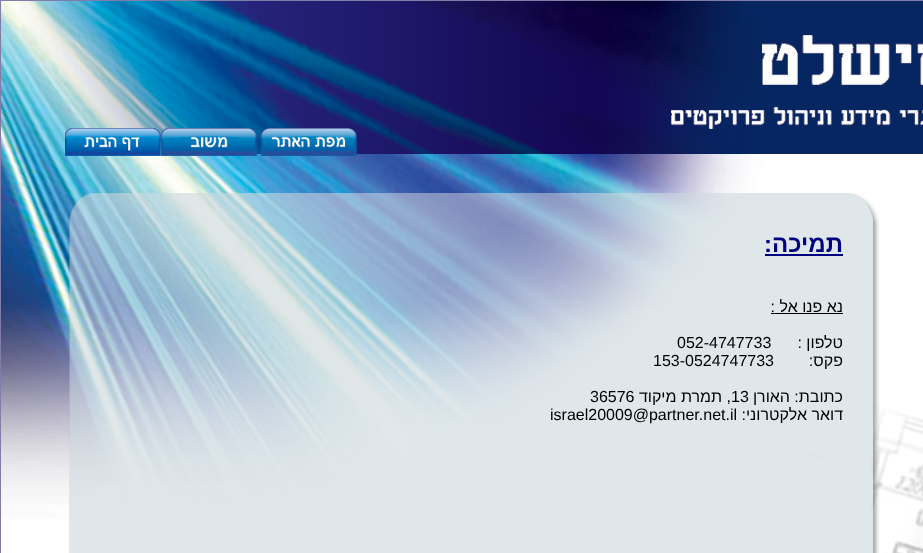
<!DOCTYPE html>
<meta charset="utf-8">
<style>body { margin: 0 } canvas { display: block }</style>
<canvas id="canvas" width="923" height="553"></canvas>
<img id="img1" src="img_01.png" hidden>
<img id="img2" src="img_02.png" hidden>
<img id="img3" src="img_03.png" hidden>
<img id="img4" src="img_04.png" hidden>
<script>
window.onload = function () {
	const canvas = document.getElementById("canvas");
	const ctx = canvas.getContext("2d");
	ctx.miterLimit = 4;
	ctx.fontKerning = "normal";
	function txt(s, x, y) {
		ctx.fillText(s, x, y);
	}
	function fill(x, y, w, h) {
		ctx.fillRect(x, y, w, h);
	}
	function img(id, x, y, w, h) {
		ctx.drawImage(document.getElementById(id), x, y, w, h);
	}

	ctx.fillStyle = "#807DA9";
	fill(0, 0, 923, 553);
	img("img1", 1, 1, 922, 552);
	img("img2", 261, 128, 96, 28);
	img("img3", 161, 128, 96, 28);
	img("img4", 65, 128, 96, 28);
	ctx.fillStyle = "#000080";
	fill(765, 254, 78, 2);
	ctx.fillStyle = "#000000";
	fill(771, 313, 72, 1);
	ctx.direction = "rtl";
	ctx.font = "bold 24px Liberation Sans";
	ctx.fillStyle = "#000080";
	txt("תמיכה:", 843, 252);
	ctx.font = "16px Liberation Sans";
	ctx.fillStyle = "#000000";
	txt("נא פנו אל :", 843, 312);
	txt("טלפון :", 843, 348);
	ctx.direction = "ltr";
	txt("052-4747733", 677, 348);
	ctx.direction = "rtl";
	txt("פקס:", 843, 366);
	ctx.direction = "ltr";
	txt("153-0524747733", 653, 366);
	ctx.direction = "rtl";
	txt("כתובת:", 843, 402);
	txt("האורן", 790, 402);
	ctx.direction = "ltr";
	txt("13", 731, 402);
	ctx.direction = "rtl";
	txt(", תמרת מיקוד", 731, 402);
	ctx.direction = "ltr";
	txt("36576", 590, 402);
	ctx.direction = "rtl";
	txt("דואר אלקטרוני:", 843, 420);
	ctx.direction = "ltr";
	txt("israel20009@partner.net.il", 550, 420);
};
</script>
